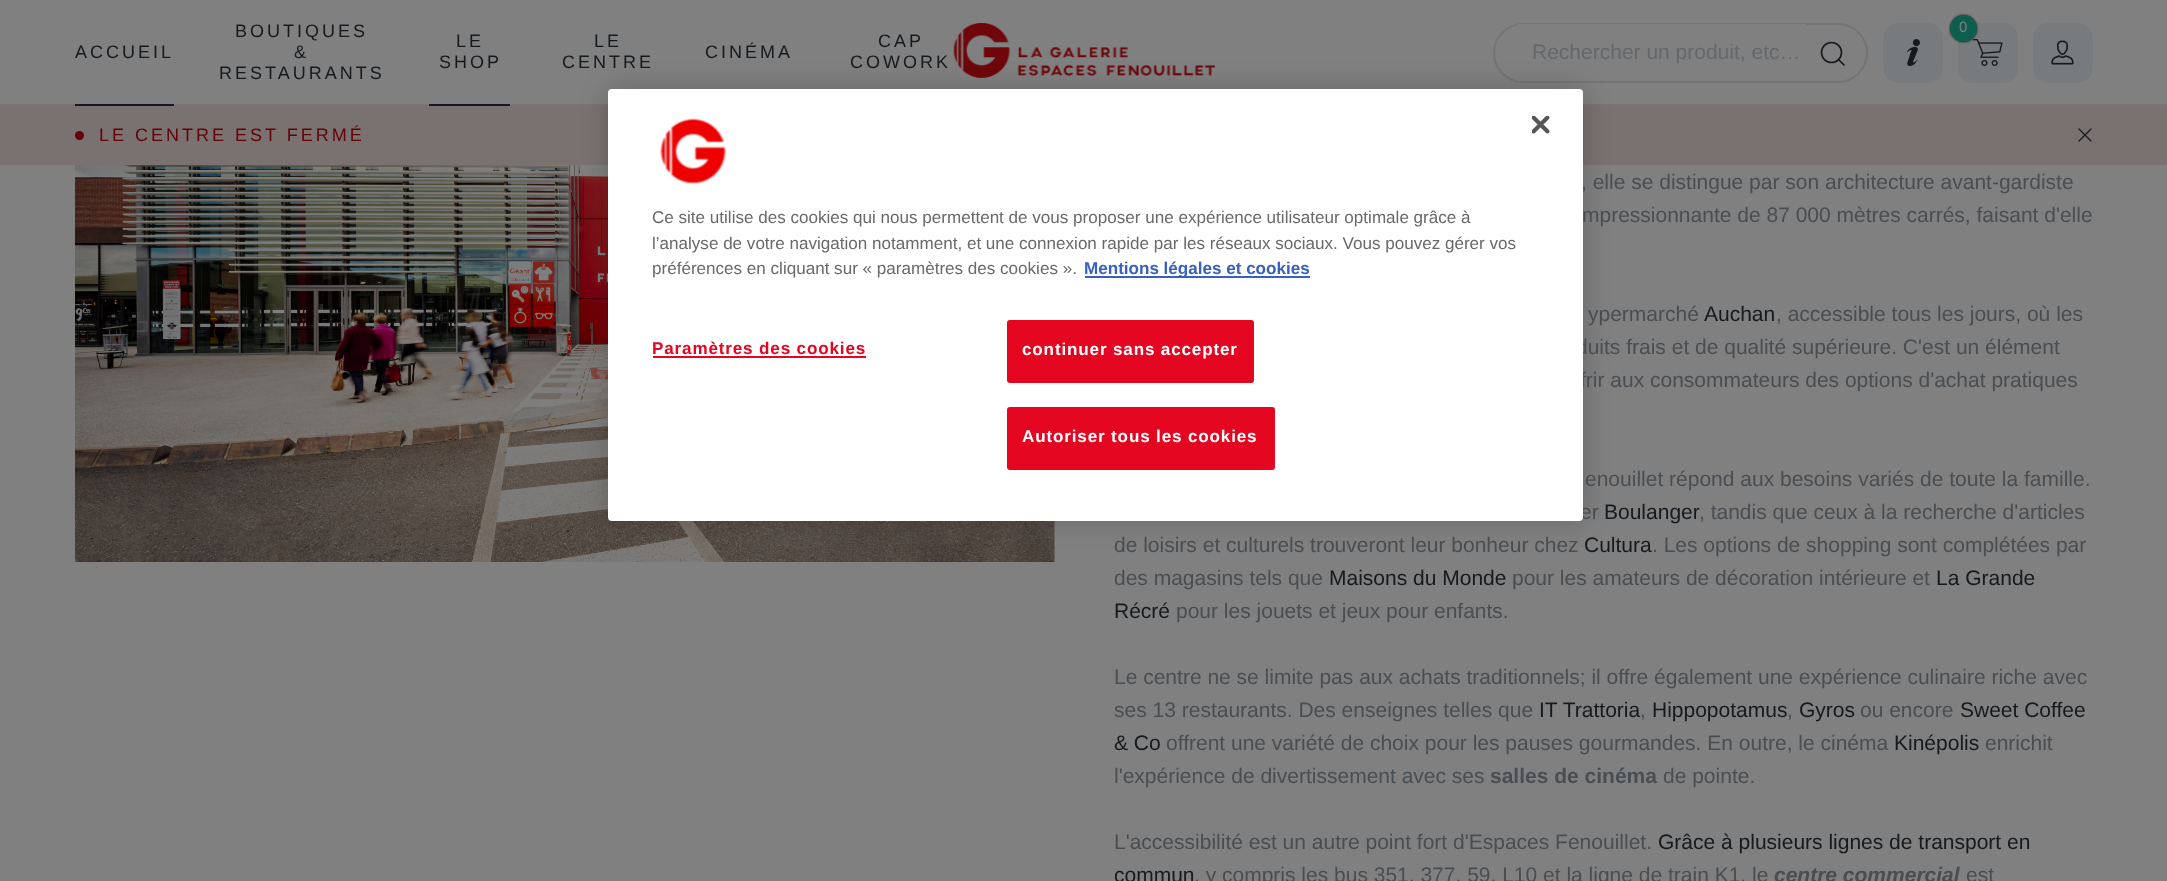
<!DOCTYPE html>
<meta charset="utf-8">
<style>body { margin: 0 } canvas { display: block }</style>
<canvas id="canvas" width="2167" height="881"></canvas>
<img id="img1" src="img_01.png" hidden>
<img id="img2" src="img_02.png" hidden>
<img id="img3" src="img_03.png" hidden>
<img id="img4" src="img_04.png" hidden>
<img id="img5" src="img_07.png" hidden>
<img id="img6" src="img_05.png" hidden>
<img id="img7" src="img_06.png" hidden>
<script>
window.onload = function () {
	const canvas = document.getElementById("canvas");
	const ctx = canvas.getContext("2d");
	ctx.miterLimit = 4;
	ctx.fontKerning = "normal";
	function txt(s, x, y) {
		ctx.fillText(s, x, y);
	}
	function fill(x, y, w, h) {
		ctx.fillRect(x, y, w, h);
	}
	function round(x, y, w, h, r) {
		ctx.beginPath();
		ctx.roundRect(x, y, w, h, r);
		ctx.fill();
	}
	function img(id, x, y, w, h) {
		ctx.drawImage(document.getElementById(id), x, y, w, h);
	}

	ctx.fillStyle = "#808080";
	fill(0, 0, 2167, 881);
	ctx.fillStyle = "#757575";
	fill(0, 104, 2167, 2);
	ctx.fillStyle = "#151A1F";
	fill(75, 104, 99, 2);
	fill(429, 104, 81, 2);
	img("img1", 953, 23, 262, 55);
	ctx.fillStyle = "#787B7D";
	round(1883, 23, 60, 60, 15);
	img("img2", 1907, 39, 13, 27);
	round(1958, 23, 60, 60, 15);
	img("img3", 1973, 39, 30, 27);
	ctx.fillStyle = "#1A1A1A";
	ctx.filter = "blur(1px)";
	ctx.beginPath();
	ctx.roundRect(1950, 15, 27, 27, 13.5);
	ctx.fill();
	ctx.filter = "none";
	ctx.fillStyle = "#0D5E4E";
	ctx.beginPath();
	ctx.arc(1963.5, 28.5, 13.5, 0, Math.PI * 2);
	ctx.fill();
	ctx.fillStyle = "#787B7D";
	round(2033, 23, 60, 60, 15);
	img("img4", 2051, 40, 23, 25);
	ctx.beginPath();
	ctx.roundRect(1494, 24, 373, 58, 29);
	ctx.strokeStyle = "#707579";
	ctx.lineWidth = 2;
	ctx.stroke();
	ctx.fillStyle = "#808080";
	fill(1517, 24, 289, 57);
	ctx.beginPath();
	ctx.arc(1831.5, 52.5, 10, 0, Math.PI * 2);
	ctx.strokeStyle = "#151A1F";
	ctx.lineWidth = 1.6;
	ctx.stroke();
	ctx.beginPath();
	ctx.moveTo(1844, 65);
	ctx.lineTo(1838.5, 59.5);
	ctx.lineCap = "round";
	ctx.lineJoin = "round";
	ctx.stroke();
	ctx.fillStyle = "#7A7171";
	fill(0, 106, 2167, 59);
	ctx.fillStyle = "#630307";
	ctx.beginPath();
	ctx.arc(79.5, 135.5, 4.5, 0, Math.PI * 2);
	ctx.fill();
	ctx.beginPath();
	ctx.moveTo(2091, 129);
	ctx.lineTo(2079, 141);
	ctx.moveTo(2079, 129);
	ctx.lineTo(2091, 141);
	ctx.lineWidth = 1.2;
	ctx.stroke();
	img("img5", 75, 165, 980, 397);
	ctx.fillStyle = "rgba(0, 0, 0, 0.2)";
	ctx.filter = "blur(13.5px)";
	ctx.beginPath();
	ctx.roundRect(608, 89, 975, 432, 4);
	ctx.fill();
	ctx.filter = "none";
	ctx.letterSpacing = "3px";
	ctx.font = "18px Liberation Sans";
	ctx.fillStyle = "#151A1F";
	txt("ACCUEIL", 75, 58);
	txt("BOUTIQUES", 235, 37);
	txt("&", 294, 58);
	txt("RESTAURANTS", 219, 79);
	txt("LE", 456, 47);
	txt("SHOP", 439, 68);
	txt("LE", 594, 47);
	txt("CENTRE", 562, 68);
	txt("CINÉMA", 705, 58);
	txt("CAP", 878, 47);
	txt("COWORK", 850, 68);
	ctx.letterSpacing = "0px";
	ctx.font = "15px Liberation Sans";
	ctx.fillStyle = "#808080";
	txt("0", 1959, 32);
	ctx.font = "21px Liberation Sans";
	ctx.fillStyle = "#63686C";
	txt("Rechercher un produit, etc…", 1532, 59);
	ctx.letterSpacing = "3px";
	ctx.font = "18px Liberation Sans";
	ctx.fillStyle = "#630307";
	txt("LE CENTRE EST FERMÉ", 99, 141);
	ctx.letterSpacing = "0px";
	ctx.font = "21px Liberation Sans";
	ctx.fillStyle = "#494E53";
	txt(", elle se distingue par son architecture avant-gardiste", 1581, 189);
	txt("mpressionnante de 87 000 mètres carrés, faisant d'elle", 1582, 222);
	txt("ypermarché", 1588, 321);
	ctx.fillStyle = "#151A1F";
	txt("Auchan", 1704, 321);
	ctx.fillStyle = "#494E53";
	txt(", accessible tous les jours, où les", 1776, 321);
	txt("duits frais et de qualité supérieure. C'est un élément", 1576, 354);
	txt("frir aux consommateurs des options d'achat pratiques", 1580, 387);
	txt("enouillet répond aux besoins variés de toute la famille.", 1585, 486);
	txt("er", 1580, 519);
	ctx.fillStyle = "#FFFFFF";
	round(608, 89, 975, 432, 4);
	img("img6", 1532, 116, 18, 18);
	ctx.fillStyle = "#E40520";
	ctx.beginPath();
	ctx.roundRect(1008, 408, 266, 61, 2);
	ctx.fill();
	ctx.strokeStyle = "#E40520";
	ctx.lineWidth = 2;
	ctx.lineJoin = "miter";
	ctx.stroke();
	ctx.letterSpacing = "0.85px";
	ctx.font = "bold 17.07px Liberation Sans";
	ctx.fillStyle = "#FFFFFF";
	txt("Autoriser tous les cookies", 1022, 442);
	ctx.fillStyle = "#E40520";
	ctx.beginPath();
	ctx.roundRect(1008, 321, 245, 61, 2);
	ctx.fill();
	ctx.stroke();
	ctx.fillStyle = "#FFFFFF";
	txt("continuer sans accepter", 1022, 355);
	ctx.fillStyle = "#E40520";
	txt("Paramètres des cookies", 652, 354);
	fill(653, 356, 213, 2);
	img("img7", 659, 118, 68, 66);
	ctx.fillStyle = "#3860BE";
	fill(1085, 276, 225, 2);
	ctx.letterSpacing = "0px";
	txt("Mentions légales et cookies", 1084, 274);
	ctx.font = "17.07px Liberation Sans";
	ctx.fillStyle = "#696969";
	txt("préférences en cliquant sur « paramètres des cookies ».", 652, 274);
	txt("l’analyse de votre navigation notamment, et une connexion rapide par les réseaux sociaux. Vous pouvez gérer vos", 652, 249);
	txt("Ce site utilise des cookies qui nous permettent de vous proposer une expérience utilisateur optimale grâce à", 652, 223);
	ctx.font = "21px Liberation Sans";
	ctx.fillStyle = "#151A1F";
	txt("Boulanger", 1604, 519);
	ctx.fillStyle = "#494E53";
	txt(", tandis que ceux à la recherche d'articles", 1699, 519);
	txt("de loisirs et culturels trouveront leur bonheur chez", 1114, 552);
	ctx.fillStyle = "#151A1F";
	txt("Cultura", 1584, 552);
	ctx.fillStyle = "#494E53";
	txt(". Les options de shopping sont complétées par", 1652, 552);
	txt("des magasins tels que", 1114, 585);
	ctx.fillStyle = "#151A1F";
	txt("Maisons du Monde", 1329, 585);
	ctx.fillStyle = "#494E53";
	txt("pour les amateurs de décoration intérieure et", 1512, 585);
	ctx.fillStyle = "#151A1F";
	txt("La Grande", 1936, 585);
	txt("Récré", 1114, 618);
	ctx.fillStyle = "#494E53";
	txt("pour les jouets et jeux pour enfants.", 1176, 618);
	txt("Le centre ne se limite pas aux achats traditionnels; il offre également une expérience culinaire riche avec", 1114, 684);
	txt("ses 13 restaurants. Des enseignes telles que", 1114, 717);
	ctx.fillStyle = "#151A1F";
	txt("IT Trattoria", 1539, 717);
	ctx.fillStyle = "#494E53";
	txt(",", 1640, 717);
	ctx.fillStyle = "#151A1F";
	txt("Hippopotamus", 1652, 717);
	ctx.fillStyle = "#494E53";
	txt(",", 1787, 717);
	ctx.fillStyle = "#151A1F";
	txt("Gyros", 1799, 717);
	ctx.fillStyle = "#494E53";
	txt("ou encore", 1860, 717);
	ctx.fillStyle = "#151A1F";
	txt("Sweet Coffee", 1960, 717);
	txt("& Co", 1114, 750);
	ctx.fillStyle = "#494E53";
	txt("offrent une variété de choix pour les pauses gourmandes. En outre, le cinéma", 1166, 750);
	ctx.fillStyle = "#151A1F";
	txt("Kinépolis", 1894, 750);
	ctx.fillStyle = "#494E53";
	txt("enrichit", 1985, 750);
	txt("l'expérience de divertissement avec ses", 1114, 783);
	ctx.font = "bold 21px Liberation Sans";
	txt("salles de cinéma", 1490, 783);
	ctx.font = "21px Liberation Sans";
	txt("de pointe.", 1663, 783);
	txt("L'accessibilité est un autre point fort d'Espaces Fenouillet.", 1114, 849);
	ctx.fillStyle = "#151A1F";
	txt("Grâce à plusieurs lignes de transport en", 1658, 849);
	txt("commun", 1114, 882);
	ctx.fillStyle = "#494E53";
	txt(", y compris les bus 351, 377, 59, L10 et la ligne de train K1, le", 1194, 882);
	ctx.font = "italic bold 21px Liberation Sans";
	txt("centre commercial", 1774, 882);
	ctx.font = "21px Liberation Sans";
	txt("est", 1966, 882);
};
</script>
